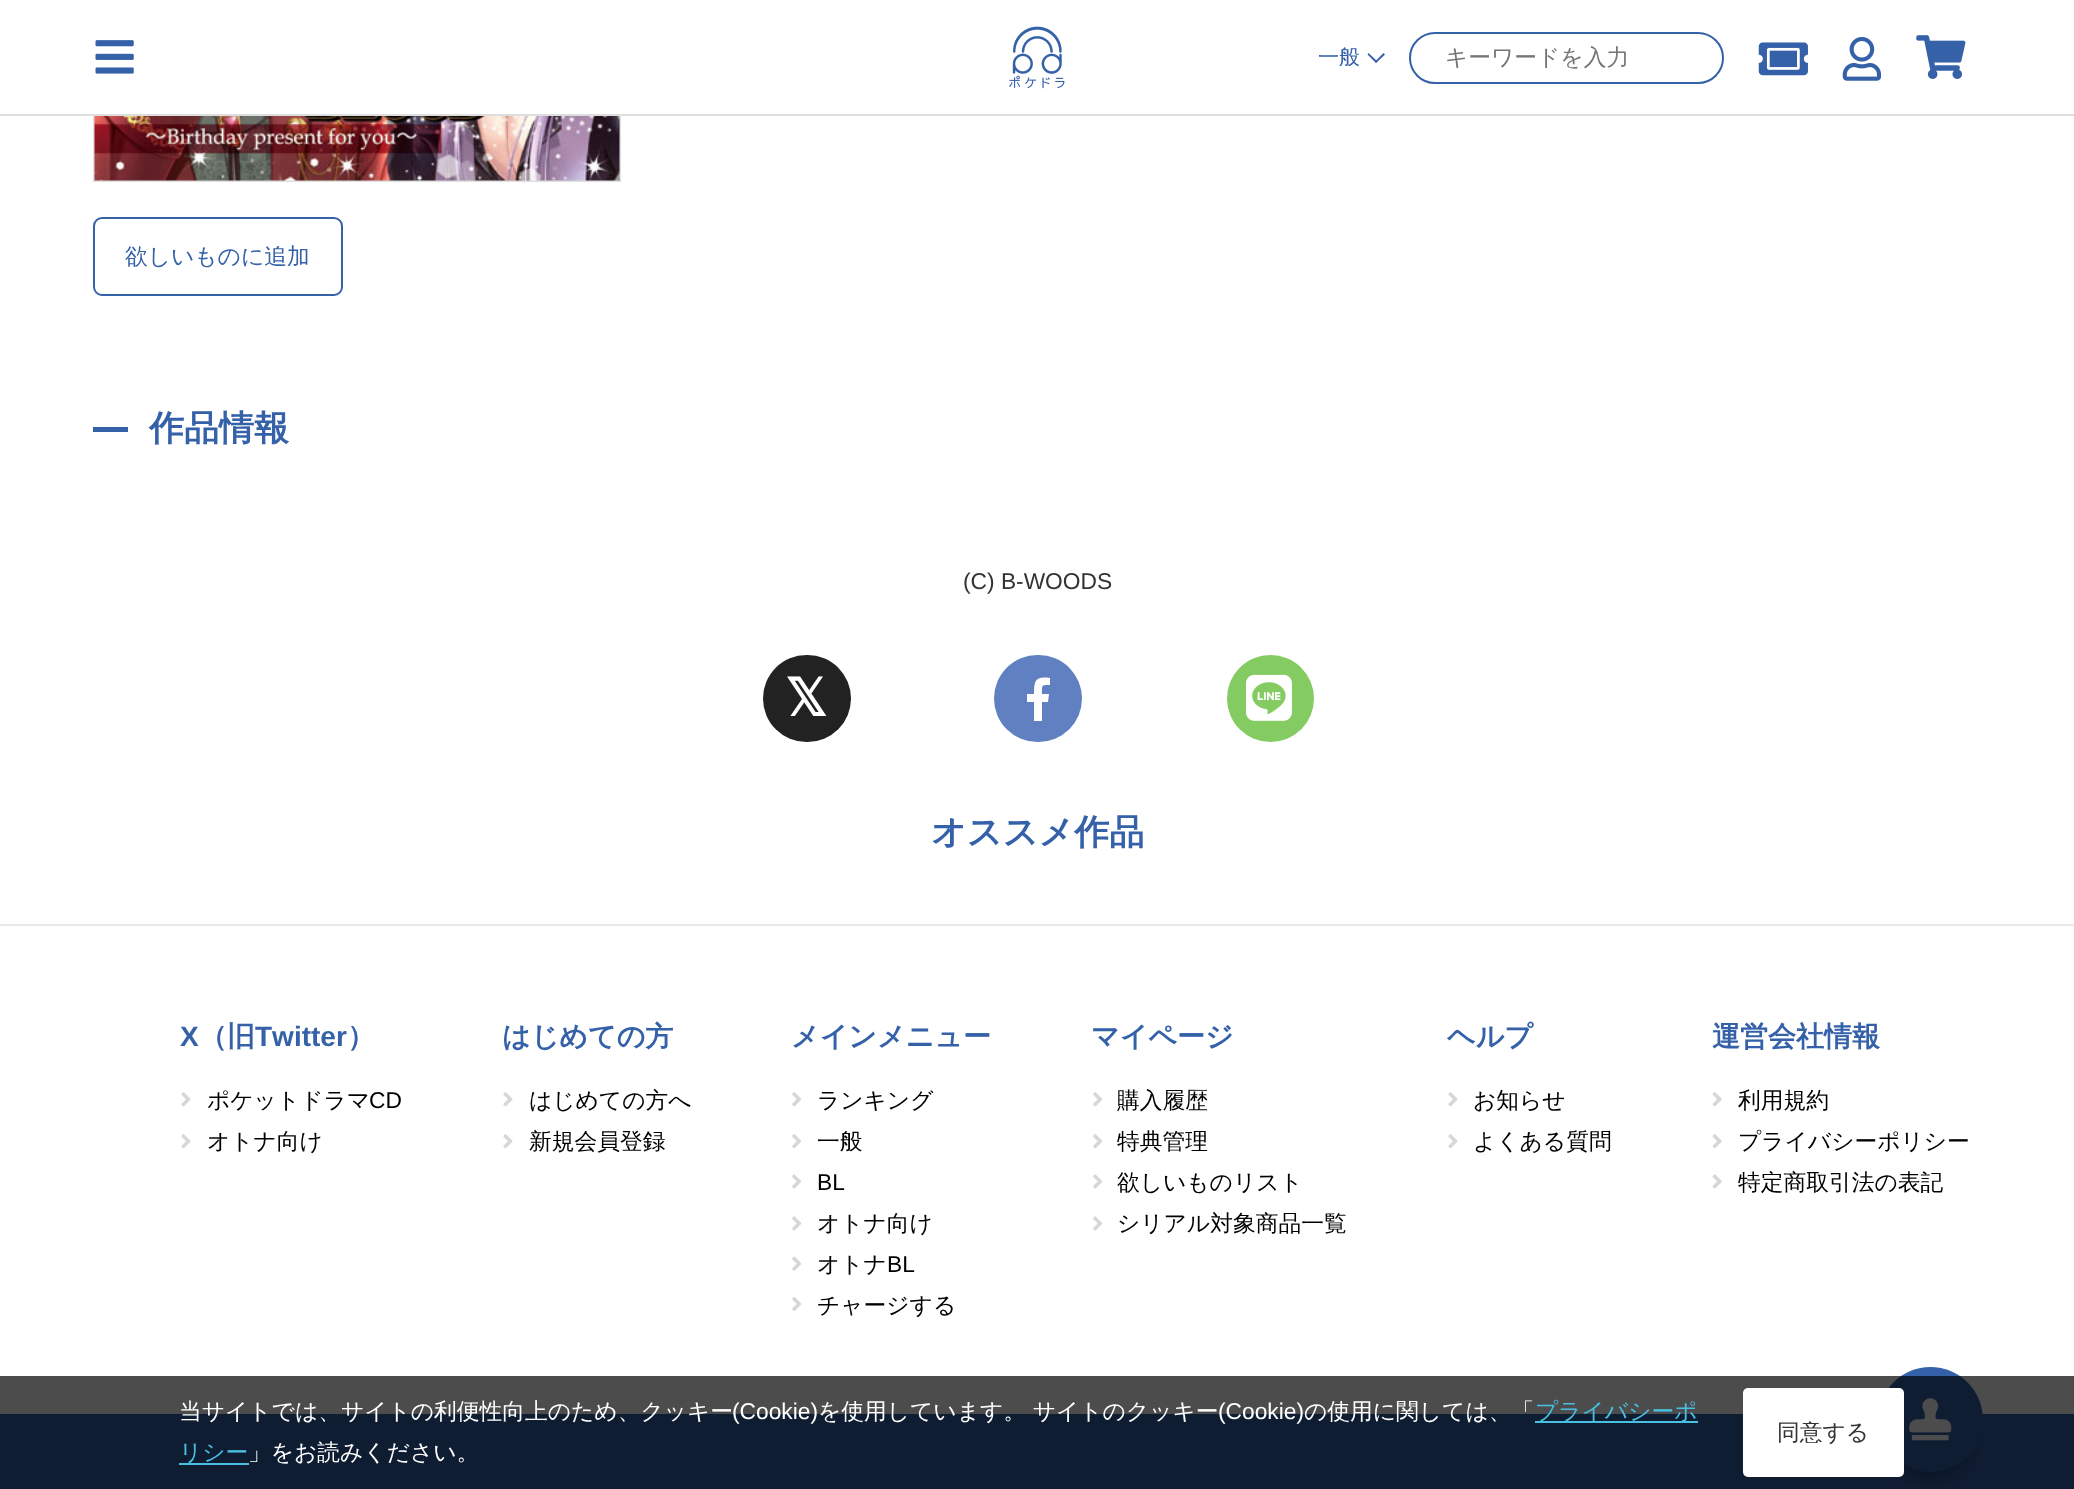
<!DOCTYPE html>
<meta charset="utf-8">
<style>body { margin: 0 } canvas { display: block }</style>
<canvas id="canvas" width="2074" height="1489"></canvas>
<img id="img1" src="img_01.png" hidden>
<img id="img2" src="img_02.png" hidden>
<img id="img3" src="img_03.png" hidden>
<img id="img4" src="img_04.png" hidden>
<img id="img5" src="img_05.png" hidden>
<img id="img6" src="img_06.png" hidden>
<img id="img7" src="img_07.png" hidden>
<img id="img8" src="img_08.png" hidden>
<img id="img9" src="img_09.png" hidden>
<img id="img10" src="img_10.png" hidden>
<img id="img11" src="img_11.png" hidden>
<img id="img12" src="img_12.png" hidden>
<img id="img13" src="img_13.png" hidden>
<img id="img14" src="img_14.png" hidden>
<img id="img15" src="img_15.png" hidden>
<script>
window.onload = function () {
	const canvas = document.getElementById("canvas");
	const ctx = canvas.getContext("2d");
	ctx.miterLimit = 4;
	ctx.fontKerning = "none";
	function txt(s, x, y) {
		ctx.fillText(s, x, y);
	}
	function fill(x, y, w, h) {
		ctx.fillRect(x, y, w, h);
	}
	function round(x, y, w, h, r) {
		ctx.beginPath();
		ctx.roundRect(x, y, w, h, r);
		ctx.fill();
	}
	function img(id, x, y, w, h) {
		ctx.drawImage(document.getElementById(id), x, y, w, h);
	}

	ctx.fillStyle = "#FFFFFF";
	fill(0, 0, 2074, 1489);
	ctx.strokeStyle = "#DEDEDE";
	ctx.lineWidth = 2;
	ctx.strokeRect(94, -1, 526, 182);
	fill(93, 0, 528, 114);
	ctx.fillStyle = "#DEDEDE";
	fill(0, 114, 2074, 2);
	img("img1", 95, 40, 39, 34);
	img("img2", 1009, 26, 56, 63);
	ctx.fillStyle = "#3561A9";
	ctx.beginPath();
	ctx.moveTo(1385, 54.5);
	ctx.lineTo(1376, 63);
	ctx.lineTo(1375, 61.5);
	ctx.lineTo(1383.5, 53);
	ctx.closePath();
	ctx.fill();
	ctx.beginPath();
	ctx.moveTo(1377.5, 61.5);
	ctx.lineTo(1376, 63);
	ctx.lineTo(1367.5, 54.5);
	ctx.lineTo(1368.5, 53);
	ctx.closePath();
	ctx.fill();
	ctx.beginPath();
	ctx.roundRect(1410, 33, 313, 50, 25);
	ctx.strokeStyle = "#3561A9";
	ctx.stroke();
	img("img3", 1758, 42, 50, 34);
	img("img4", 1842, 37, 40, 44);
	img("img5", 1916, 35, 50, 44);
	img("img6", 94, 116, 526, 65);
	ctx.beginPath();
	ctx.roundRect(94, 218, 248, 77, 8);
	ctx.stroke();
	fill(93, 427, 35, 5);
	ctx.fillStyle = "#222222";
	round(763, 655, 88, 87, 43.5);
	ctx.fillStyle = "#6180C1";
	round(994, 655, 88, 87, 43.5);
	ctx.fillStyle = "#FFFFFF";
	ctx.beginPath();
	ctx.moveTo(1034, 721);
	ctx.lineTo(1034, 702);
	ctx.lineTo(1027, 702);
	ctx.lineTo(1027, 694);
	ctx.lineTo(1034, 694);
	ctx.bezierCurveTo(1034, 681, 1035, 676, 1050, 678);
	ctx.lineTo(1050, 685);
	ctx.bezierCurveTo(1041, 685, 1042, 685, 1042, 694);
	ctx.lineTo(1049, 694);
	ctx.lineTo(1048, 702);
	ctx.lineTo(1042, 702);
	ctx.lineTo(1042, 721);
	ctx.closePath();
	ctx.fill();
	ctx.fillStyle = "#84CC61";
	ctx.beginPath();
	ctx.arc(1270.5, 698.5, 43.5, 0, Math.PI * 2);
	ctx.fill();
	img("img7", 1246, 674, 46, 47);
	ctx.fillStyle = "#E7E9EB";
	fill(0, 924, 2074, 2);
	img("img8", 181, 1092, 10, 15);
	img("img8", 181, 1134, 10, 15);
	img("img8", 503, 1092, 10, 15);
	img("img8", 503, 1134, 10, 15);
	img("img9", 792, 1092, 10, 15);
	img("img9", 792, 1134, 10, 15);
	img("img10", 792, 1174, 10, 15);
	img("img10", 792, 1216, 10, 15);
	img("img11", 792, 1256, 10, 15);
	img("img12", 792, 1297, 10, 14);
	img("img9", 1093, 1092, 10, 15);
	img("img9", 1093, 1134, 10, 15);
	img("img10", 1093, 1174, 10, 15);
	img("img10", 1093, 1216, 10, 15);
	img("img8", 1448, 1092, 10, 15);
	img("img8", 1448, 1134, 10, 15);
	img("img13", 1712, 1092, 10, 15);
	img("img13", 1712, 1134, 10, 15);
	img("img14", 1712, 1174, 10, 15);
	ctx.fillStyle = "#3561A9";
	fill(0, 1414, 2074, 75);
	ctx.fillStyle = "rgba(0, 0, 0, 0.3)";
	ctx.filter = "blur(9px)";
	ctx.beginPath();
	ctx.roundRect(1888, 1395, 84, 84, 42);
	ctx.fill();
	ctx.filter = "none";
	ctx.fillStyle = "#3561A9";
	ctx.beginPath();
	ctx.arc(1930.5, 1419.5, 52.5, 0, Math.PI * 2);
	ctx.fill();
	img("img15", 1909, 1398, 43, 43);
	ctx.fillStyle = "rgba(0, 0, 0, 0.7)";
	fill(0, 1376, 2074, 113);
	ctx.fillStyle = "#49BFE2";
	fill(1535, 1421, 163, 2);
	fill(179, 1463, 70, 2);
	ctx.fillStyle = "#FFFFFF";
	round(1743, 1388, 161, 89, 5);
	ctx.font = "500 21px WenQuanYi Zen Hei";
	ctx.fillStyle = "#3561A9";
	txt("一般", 1318, 64);
	ctx.font = "500 22.75px WenQuanYi Zen Hei";
	ctx.fillStyle = "#757575";
	txt("キーワードを入力", 1445, 65);
	ctx.fillStyle = "#3561A9";
	txt("欲しいものに追加", 125, 264);
	ctx.font = "bold 35px WenQuanYi Zen Hei";
	txt("作品情報", 149, 440);
	ctx.font = "22.75px Liberation Sans";
	ctx.fillStyle = "#333333";
	txt("(C) B-WOODS", 963, 589);
	ctx.font = "bold 52px DejaVu Sans";
	ctx.fillStyle = "#FFFFFF";
	txt("𝕏", 785, 716);
	ctx.font = "bold 35px WenQuanYi Zen Hei";
	ctx.fillStyle = "#3561A9";
	txt("オススメ作品", 931, 844);
	ctx.font = "bold 28px Liberation Sans";
	txt("X", 180, 1046);
	ctx.font = "bold 28px WenQuanYi Zen Hei";
	txt("（旧", 199, 1046);
	ctx.font = "bold 28px Liberation Sans";
	txt("Twitter", 255, 1046);
	ctx.font = "bold 28px WenQuanYi Zen Hei";
	txt("）", 347, 1046);
	ctx.font = "500 22.75px WenQuanYi Zen Hei";
	ctx.fillStyle = "#000000";
	txt("ポケットドラマ", 207, 1108);
	ctx.font = "22.75px Liberation Sans";
	txt("CD", 369, 1108);
	ctx.font = "500 22.75px WenQuanYi Zen Hei";
	txt("オトナ向け", 207, 1149);
	ctx.font = "bold 28px WenQuanYi Zen Hei";
	ctx.fillStyle = "#3561A9";
	txt("はじめての方", 502, 1046);
	ctx.font = "500 22.75px WenQuanYi Zen Hei";
	ctx.fillStyle = "#000000";
	txt("はじめての方へ", 529, 1108);
	txt("新規会員登録", 529, 1149);
	ctx.font = "bold 28px WenQuanYi Zen Hei";
	ctx.fillStyle = "#3561A9";
	txt("メインメニュー", 791, 1046);
	ctx.font = "500 22.75px WenQuanYi Zen Hei";
	ctx.fillStyle = "#000000";
	txt("ランキング", 817, 1108);
	txt("一般", 817, 1149);
	ctx.font = "22.75px Liberation Sans";
	txt("BL", 817, 1190);
	ctx.font = "500 22.75px WenQuanYi Zen Hei";
	txt("オトナ向け", 817, 1231);
	txt("オトナ", 817, 1272);
	ctx.font = "22.75px Liberation Sans";
	txt("BL", 887, 1272);
	ctx.font = "500 22.75px WenQuanYi Zen Hei";
	txt("チャージする", 817, 1313);
	ctx.font = "bold 28px WenQuanYi Zen Hei";
	ctx.fillStyle = "#3561A9";
	txt("マイページ", 1091, 1046);
	ctx.font = "500 22.75px WenQuanYi Zen Hei";
	ctx.fillStyle = "#000000";
	txt("購入履歴", 1117, 1108);
	txt("特典管理", 1117, 1149);
	txt("欲しいものリスト", 1117, 1190);
	txt("シリアル対象商品一覧", 1117, 1231);
	ctx.font = "bold 28px WenQuanYi Zen Hei";
	ctx.fillStyle = "#3561A9";
	txt("ヘルプ", 1447, 1046);
	ctx.font = "500 22.75px WenQuanYi Zen Hei";
	ctx.fillStyle = "#000000";
	txt("お知らせ", 1473, 1108);
	txt("よくある質問", 1473, 1149);
	ctx.font = "bold 28px WenQuanYi Zen Hei";
	ctx.fillStyle = "#3561A9";
	txt("運営会社情報", 1712, 1046);
	ctx.font = "500 22.75px WenQuanYi Zen Hei";
	ctx.fillStyle = "#000000";
	txt("利用規約", 1738, 1108);
	txt("プライバシーポリシー", 1738, 1149);
	txt("特定商取引法の表記", 1738, 1190);
	ctx.fillStyle = "#FFFFFF";
	txt("当サイトでは、サイトの利便性向上のため、クッキー", 179, 1419);
	ctx.font = "22.75px Liberation Sans";
	txt("(Cookie)", 732, 1419);
	ctx.font = "500 22.75px WenQuanYi Zen Hei";
	txt("を使用しています。 サイトのクッキー", 818, 1419);
	ctx.font = "22.75px Liberation Sans";
	txt("(Cookie)", 1218, 1419);
	ctx.font = "500 22.75px WenQuanYi Zen Hei";
	txt("の使用に関しては、「", 1304, 1419);
	ctx.fillStyle = "#49BFE2";
	txt("プライバシーポ", 1535, 1419);
	txt("リシー", 179, 1460);
	ctx.fillStyle = "#FFFFFF";
	txt("」をお読みください。", 248, 1460);
	ctx.fillStyle = "#333333";
	txt("同意する", 1777, 1440);
};
</script>
